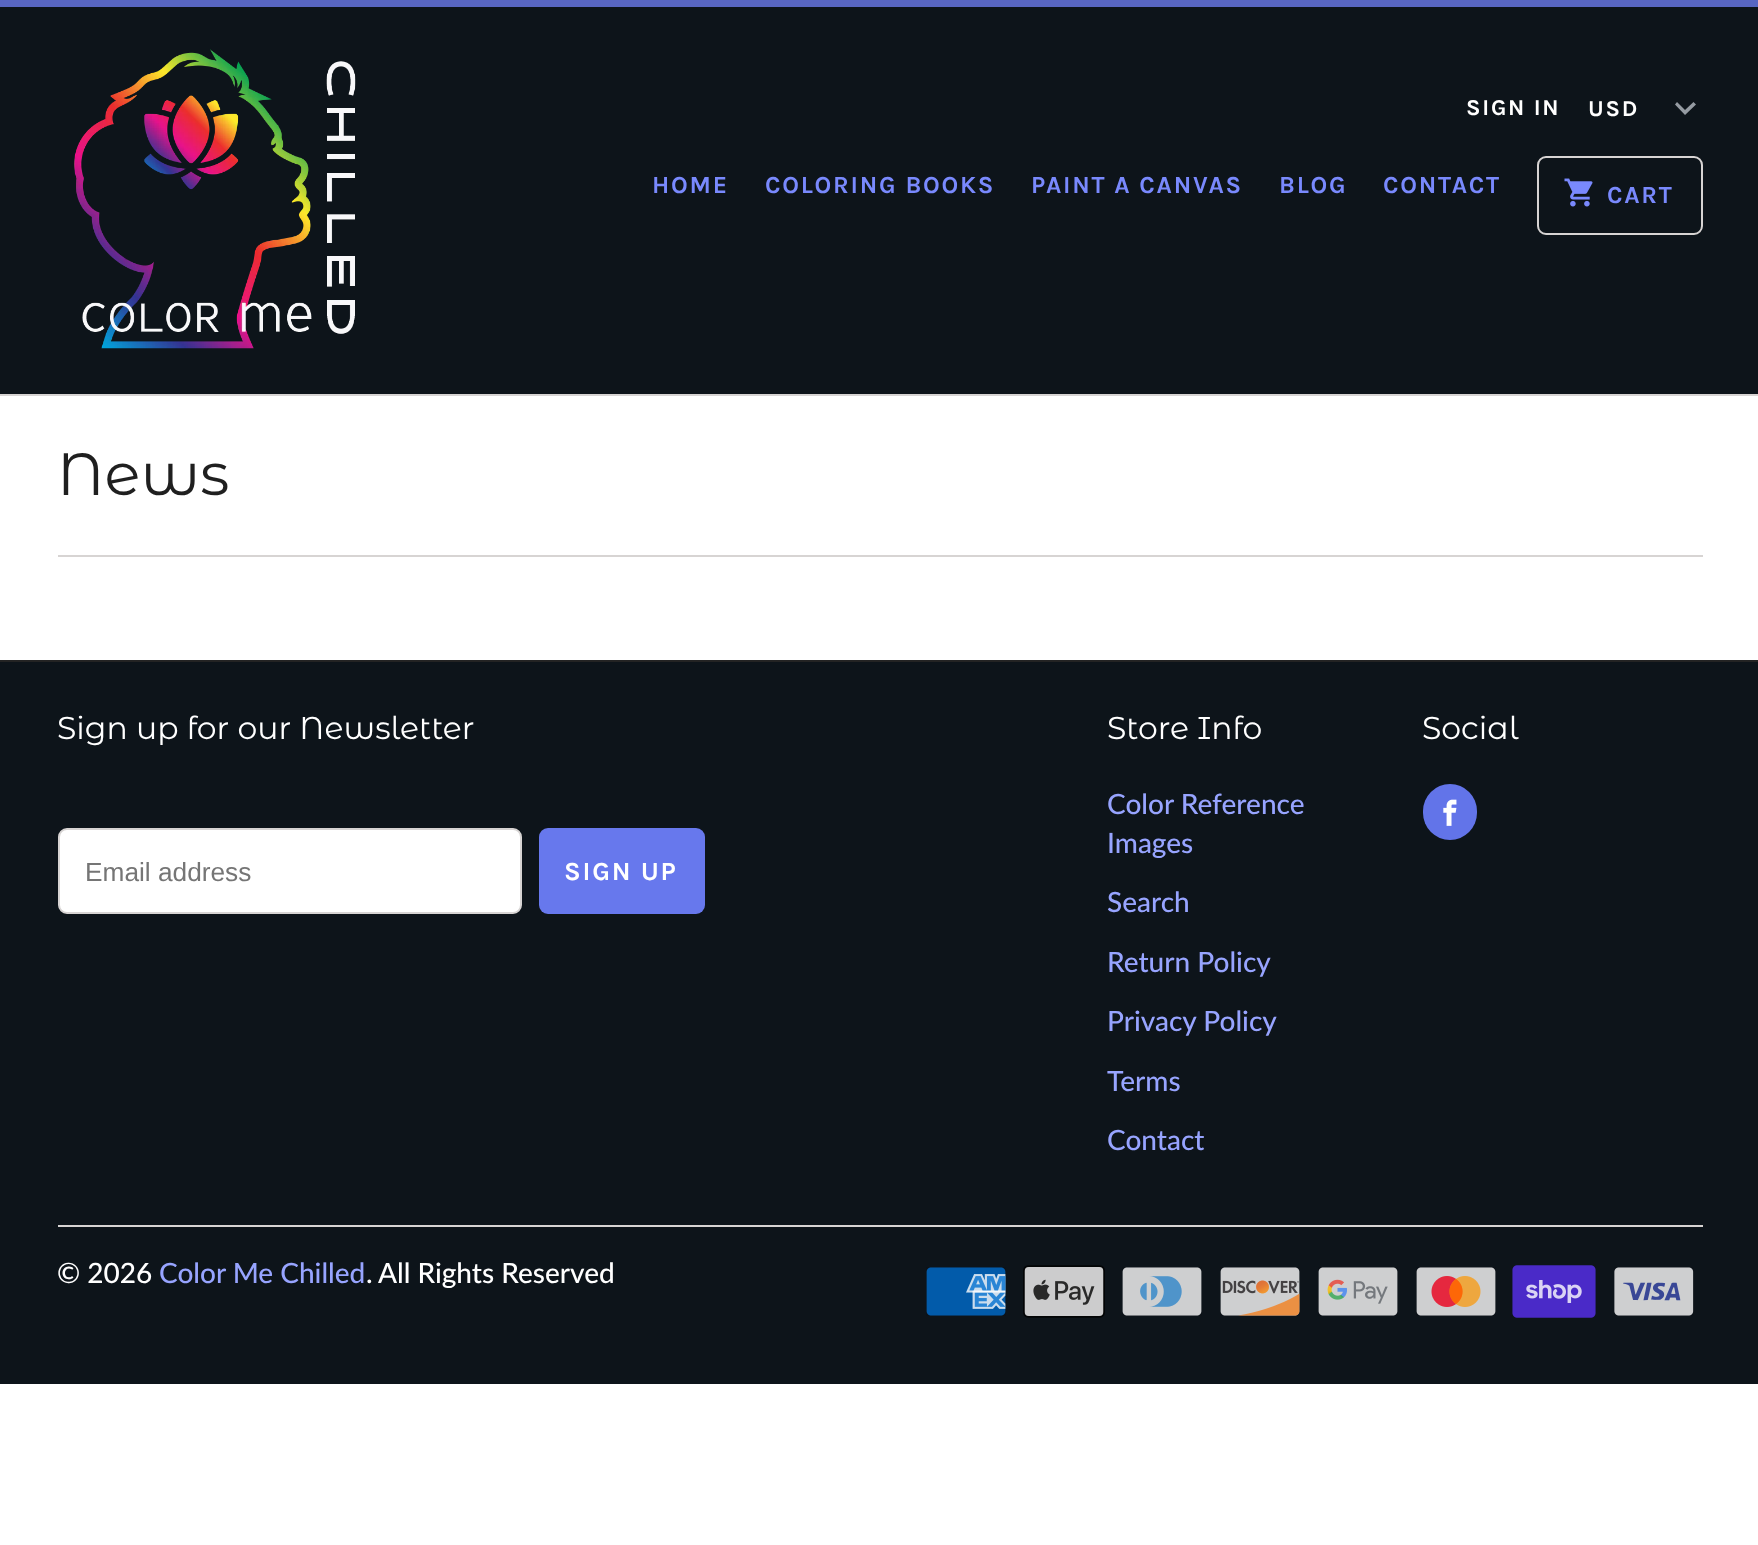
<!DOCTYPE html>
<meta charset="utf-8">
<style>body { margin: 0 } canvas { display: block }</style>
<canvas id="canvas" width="1758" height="1545"></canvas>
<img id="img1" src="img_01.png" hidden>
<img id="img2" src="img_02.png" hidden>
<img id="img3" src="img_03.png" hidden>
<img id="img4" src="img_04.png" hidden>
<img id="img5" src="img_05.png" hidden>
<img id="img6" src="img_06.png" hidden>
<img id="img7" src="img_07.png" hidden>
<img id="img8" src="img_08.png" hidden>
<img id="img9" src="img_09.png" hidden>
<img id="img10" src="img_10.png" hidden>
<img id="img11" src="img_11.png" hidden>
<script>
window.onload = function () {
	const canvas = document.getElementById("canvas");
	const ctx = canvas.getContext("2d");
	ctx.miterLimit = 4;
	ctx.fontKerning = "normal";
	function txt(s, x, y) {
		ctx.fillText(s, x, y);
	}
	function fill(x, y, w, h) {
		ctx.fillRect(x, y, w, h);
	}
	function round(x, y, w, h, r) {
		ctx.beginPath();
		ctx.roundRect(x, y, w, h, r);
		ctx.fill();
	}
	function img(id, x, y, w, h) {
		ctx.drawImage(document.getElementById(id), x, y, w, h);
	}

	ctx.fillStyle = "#FFFFFF";
	fill(0, 0, 1758, 1545);
	ctx.fillStyle = "#5866C2";
	fill(0, 0, 1758, 7);
	ctx.fillStyle = "#0D141A";
	fill(0, 7, 1758, 387);
	ctx.fillStyle = "#D7D4D3";
	fill(0, 394, 1758, 2);
	img("img1", 74, 49, 282, 300);
	ctx.fillStyle = "#959BA2";
	ctx.beginPath();
	ctx.moveTo(1693.5, 102);
	ctx.lineTo(1685, 110);
	ctx.lineTo(1677, 102);
	ctx.lineTo(1675, 104.5);
	ctx.lineTo(1685, 115);
	ctx.lineTo(1696, 104.5);
	ctx.closePath();
	ctx.fill();
	ctx.beginPath();
	ctx.roundRect(1538, 157, 164, 77, 8);
	ctx.strokeStyle = "#D7D4D3";
	ctx.lineWidth = 2;
	ctx.stroke();
	img("img2", 1564, 178, 29, 29);
	ctx.fillStyle = "#D7D4D3";
	fill(58, 555, 1645, 2);
	ctx.fillStyle = "#0D141A";
	fill(0, 662, 1758, 722);
	ctx.fillStyle = "#232323";
	fill(0, 660, 1758, 2);
	ctx.fillStyle = "#FFFFFF";
	ctx.beginPath();
	ctx.roundRect(59, 829, 462, 84, 8);
	ctx.fill();
	ctx.stroke();
	ctx.fillStyle = "#6778ED";
	round(539, 828, 166, 86, 9);
	ctx.fillStyle = "#6274E9";
	round(1423, 784, 54, 56, 27);
	img("img3", 1443, 799, 14, 27);
	ctx.fillStyle = "#D7D4D3";
	fill(58, 1225, 1645, 2);
	img("img4", 926, 1267, 80, 49);
	img("img5", 1023, 1265, 82, 53);
	img("img6", 1122, 1267, 80, 49);
	img("img7", 1220, 1267, 80, 49);
	img("img8", 1318, 1267, 80, 49);
	img("img9", 1416, 1267, 80, 49);
	img("img10", 1512, 1265, 84, 53);
	img("img11", 1614, 1267, 80, 49);
	ctx.letterSpacing = "1.75px";
	ctx.font = "bold 22.75px Karla";
	ctx.fillStyle = "#FFFFFF";
	txt("SIGN IN", 1466, 115);
	txt("USD", 1588, 116);
	ctx.font = "bold 24.5px Karla";
	ctx.fillStyle = "#7989FD";
	txt("HOME", 652, 193);
	txt("COLORING BOOKS", 765, 193);
	txt("PAINT A CANVAS", 1031, 193);
	txt("BLOG", 1279, 193);
	txt("CONTACT", 1383, 193);
	txt("CART", 1607, 203);
	ctx.letterSpacing = "0px";
	ctx.font = "59.5px Montserrat Alternates";
	ctx.fillStyle = "#1F1F1F";
	txt("News", 57, 495);
	ctx.font = "31.5px Montserrat Alternates";
	ctx.fillStyle = "#FFFFFF";
	txt("Sign up for our Newsletter", 57, 739);
	ctx.font = "26.25px Liberation Sans";
	ctx.fillStyle = "#757575";
	txt("Email address", 85, 881);
	ctx.letterSpacing = "1.75px";
	ctx.font = "bold 26.25px Karla";
	ctx.fillStyle = "#FFFFFF";
	txt("SIGN UP", 564, 880);
	ctx.letterSpacing = "0px";
	ctx.font = "31.5px Montserrat Alternates";
	txt("Store Info", 1107, 739);
	ctx.font = "500 28px Lato";
	ctx.fillStyle = "#97A4FF";
	txt("Color Reference", 1107, 814);
	txt("Images", 1107, 853);
	txt("Search", 1107, 912);
	txt("Return Policy", 1107, 972);
	txt("Privacy Policy", 1107, 1031);
	txt("Terms", 1107, 1091);
	txt("Contact", 1107, 1150);
	ctx.font = "31.5px Montserrat Alternates";
	ctx.fillStyle = "#FFFFFF";
	txt("Social", 1422, 739);
	ctx.font = "500 28px Lato";
	txt("© 2026", 57, 1283);
	ctx.fillStyle = "#97A4FF";
	txt("Color Me Chilled", 159, 1283);
	ctx.fillStyle = "#FFFFFF";
	txt(".", 366, 1283);
	txt("All Rights Reserved", 378, 1283);
};
</script>
